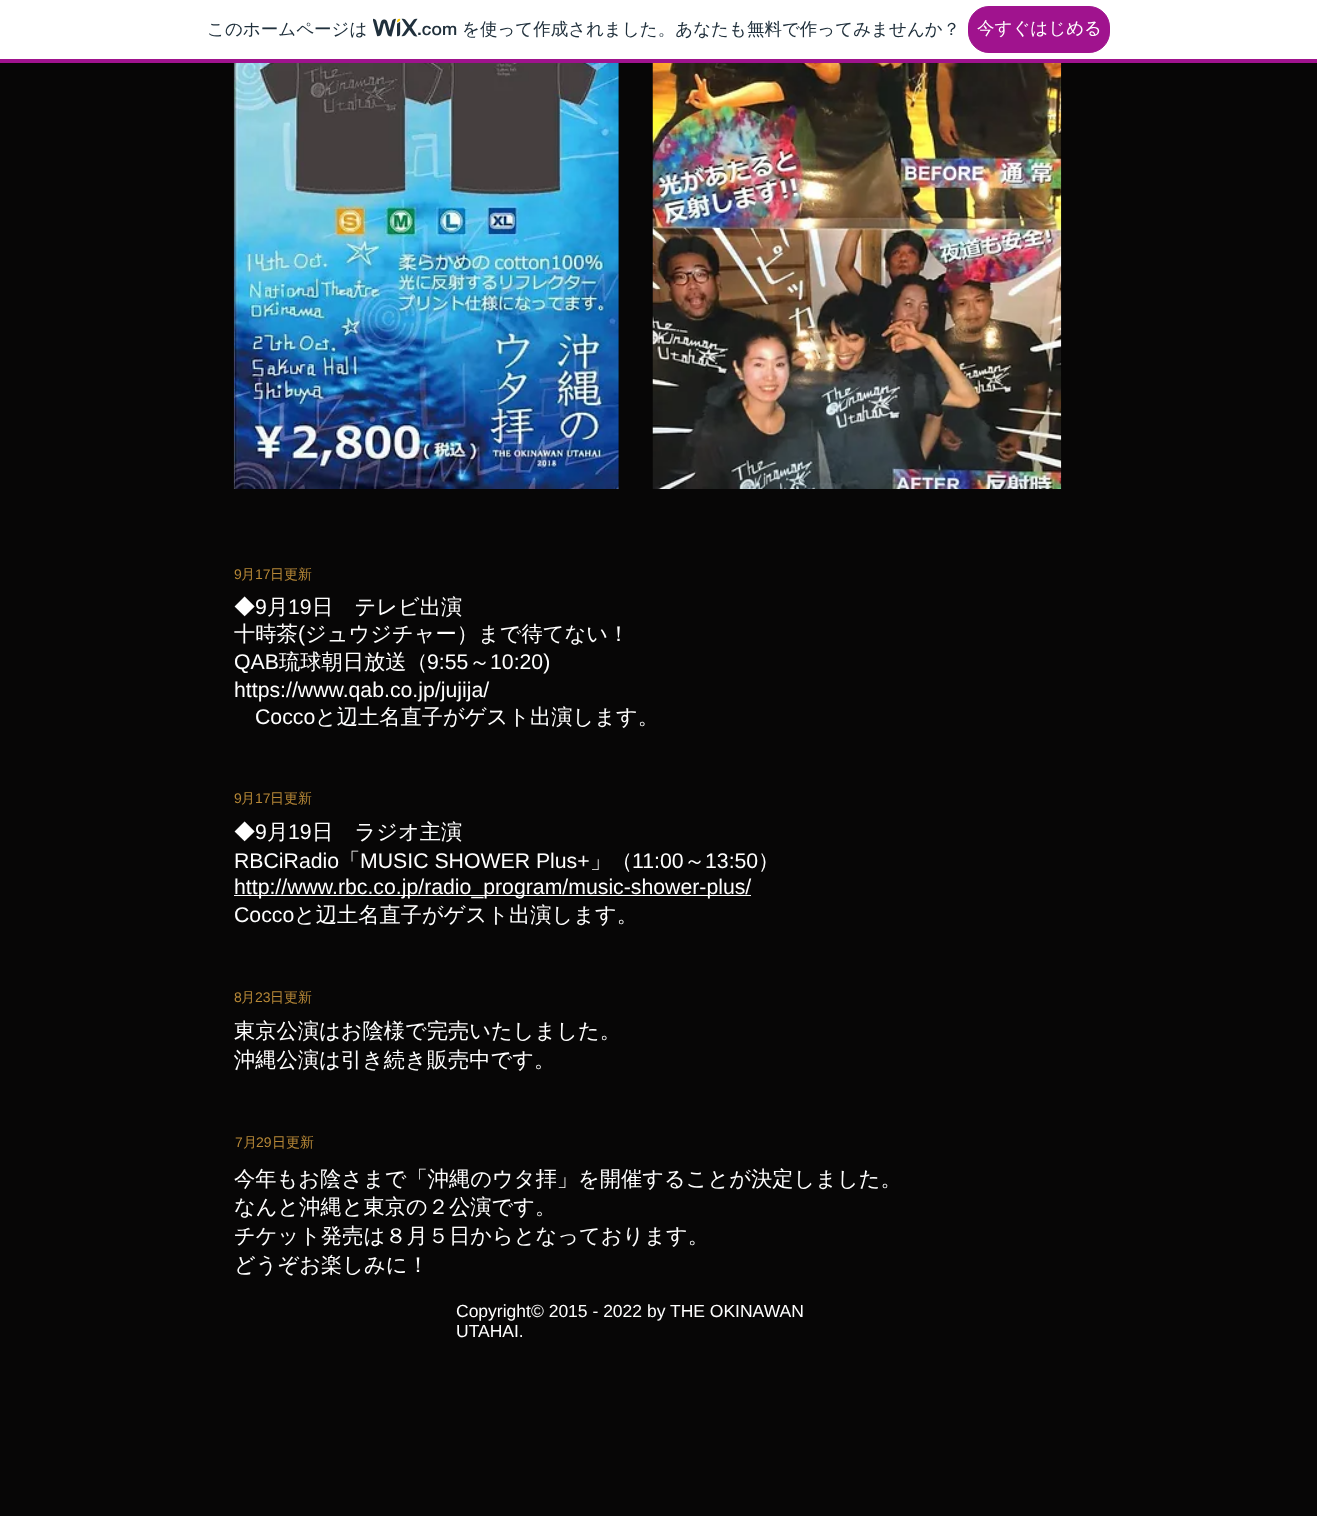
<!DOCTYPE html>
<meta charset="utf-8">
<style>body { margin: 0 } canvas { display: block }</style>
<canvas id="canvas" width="1317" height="1516"></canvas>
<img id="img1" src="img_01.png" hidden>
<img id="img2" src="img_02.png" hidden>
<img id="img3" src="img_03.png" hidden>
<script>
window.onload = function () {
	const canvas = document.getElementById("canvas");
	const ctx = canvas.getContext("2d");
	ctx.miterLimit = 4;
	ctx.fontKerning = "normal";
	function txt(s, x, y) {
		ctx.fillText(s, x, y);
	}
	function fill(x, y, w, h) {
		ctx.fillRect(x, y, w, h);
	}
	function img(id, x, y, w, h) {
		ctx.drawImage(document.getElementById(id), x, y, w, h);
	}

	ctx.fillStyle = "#070606";
	fill(0, 0, 1317, 1516);
	ctx.fillStyle = "#FFFFFF";
	fill(0, 0, 1317, 59);
	ctx.fillStyle = "#A0138E";
	fill(0, 59, 1317, 4);
	img("img1", 373, 18, 45, 19);
	ctx.beginPath();
	ctx.roundRect(968.5, 6.5, 141, 46, 20.5);
	ctx.fill();
	ctx.strokeStyle = "#A0138E";
	ctx.stroke();
	img("img2", 233, 63, 386, 426);
	img("img3", 652, 63, 410, 426);
	ctx.fillStyle = "#FFFFFF";
	fill(234, 895, 517, 1);
	ctx.font = "500 17.5px WenQuanYi Zen Hei";
	ctx.fillStyle = "#20303C";
	txt("このホームページは", 207, 35);
	ctx.font = "500 17.5px 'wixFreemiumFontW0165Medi'";
	txt(".com", 417, 35);
	ctx.font = "500 17.5px WenQuanYi Zen Hei";
	txt("を使って作成されました。あなたも無料で作ってみませんか？", 462, 35);
	ctx.fillStyle = "#FFFFFF";
	txt("今すぐはじめる", 977, 34);
	ctx.font = "14px Liberation Sans";
	ctx.fillStyle = "#B78837";
	txt("9", 234, 579);
	ctx.font = "500 14px WenQuanYi Zen Hei";
	txt("月", 241, 579);
	ctx.font = "14px Liberation Sans";
	txt("17", 255, 579);
	ctx.font = "500 14px WenQuanYi Zen Hei";
	txt("日更新", 270, 579);
	ctx.font = "500 21.25px WenQuanYi Zen Hei";
	ctx.fillStyle = "#FFFFFF";
	txt("◆", 234, 614);
	ctx.font = "21.25px Liberation Sans";
	txt("9", 255, 614);
	ctx.font = "500 21.25px WenQuanYi Zen Hei";
	txt("月", 267, 614);
	ctx.font = "21.25px Liberation Sans";
	txt("19", 288, 614);
	ctx.font = "500 21.25px WenQuanYi Zen Hei";
	txt("日　テレビ出演", 312, 614);
	txt("十時茶", 234, 641);
	ctx.font = "21.25px Liberation Sans";
	txt("(", 298, 641);
	ctx.font = "500 21.25px WenQuanYi Zen Hei";
	txt("ジュウジチャー）まで待てない！", 305, 641);
	ctx.font = "21.25px Liberation Sans";
	txt("QAB", 234, 669);
	ctx.font = "500 21.25px WenQuanYi Zen Hei";
	txt("琉球朝日放送（", 279, 669);
	ctx.font = "21.25px Liberation Sans";
	txt("9:55", 427, 669);
	ctx.font = "500 21.25px WenQuanYi Zen Hei";
	txt("～", 469, 669);
	ctx.font = "21.25px Liberation Sans";
	txt("10:20)", 490, 669);
	txt("https://www.qab.co.jp/jujija/", 234, 697);
	txt("Cocco", 255, 724);
	ctx.font = "500 21.25px WenQuanYi Zen Hei";
	txt("と辺土名直子がゲスト出演します。", 315, 724);
	ctx.font = "14px Liberation Sans";
	ctx.fillStyle = "#B78837";
	txt("9", 234, 803);
	ctx.font = "500 14px WenQuanYi Zen Hei";
	txt("月", 241, 803);
	ctx.font = "14px Liberation Sans";
	txt("17", 255, 803);
	ctx.font = "500 14px WenQuanYi Zen Hei";
	txt("日更新", 270, 803);
	ctx.font = "500 21.25px WenQuanYi Zen Hei";
	ctx.fillStyle = "#FFFFFF";
	txt("◆", 234, 839);
	ctx.font = "21.25px Liberation Sans";
	txt("9", 255, 839);
	ctx.font = "500 21.25px WenQuanYi Zen Hei";
	txt("月", 267, 839);
	ctx.font = "21.25px Liberation Sans";
	txt("19", 288, 839);
	ctx.font = "500 21.25px WenQuanYi Zen Hei";
	txt("日　ラジオ主演", 312, 839);
	ctx.font = "21.25px Liberation Sans";
	txt("RBCiRadio", 234, 868);
	ctx.font = "500 21.25px WenQuanYi Zen Hei";
	txt("「", 339, 868);
	ctx.font = "21.25px Liberation Sans";
	txt("MUSIC SHOWER Plus+", 360, 868);
	ctx.font = "500 21.25px WenQuanYi Zen Hei";
	txt("」（", 590, 868);
	ctx.font = "21.25px Liberation Sans";
	txt("11:00", 632, 868);
	ctx.font = "500 21.25px WenQuanYi Zen Hei";
	txt("～", 684, 868);
	ctx.font = "21.25px Liberation Sans";
	txt("13:50", 705, 868);
	ctx.font = "500 21.25px WenQuanYi Zen Hei";
	txt("）", 758, 868);
	ctx.font = "21.25px Liberation Sans";
	txt("http://www.rbc.co.jp/radio_program/music-shower-plus/", 234, 894);
	txt("Cocco", 234, 922);
	ctx.font = "500 21.25px WenQuanYi Zen Hei";
	txt("と辺土名直子がゲスト出演します。", 294, 922);
	ctx.font = "14px Liberation Sans";
	ctx.fillStyle = "#B78837";
	txt("8", 234, 1002);
	ctx.font = "500 14px WenQuanYi Zen Hei";
	txt("月", 241, 1002);
	ctx.font = "14px Liberation Sans";
	txt("23", 255, 1002);
	ctx.font = "500 14px WenQuanYi Zen Hei";
	txt("日更新", 270, 1002);
	ctx.font = "500 21.25px WenQuanYi Zen Hei";
	ctx.fillStyle = "#FFFFFF";
	txt("東京公演はお陰様で完売いたしました。", 234, 1038);
	txt("沖縄公演は引き続き販売中です。", 234, 1067);
	ctx.font = "14px Liberation Sans";
	ctx.fillStyle = "#B78837";
	txt("7", 235, 1147);
	ctx.font = "500 14px WenQuanYi Zen Hei";
	txt("月", 243, 1147);
	ctx.font = "14px Liberation Sans";
	txt("29", 256, 1147);
	ctx.font = "500 14px WenQuanYi Zen Hei";
	txt("日更新", 272, 1147);
	ctx.font = "500 21.25px WenQuanYi Zen Hei";
	ctx.fillStyle = "#FFFFFF";
	txt("今年もお陰さまで「沖縄のウタ拝」を開催することが決定しました。", 234, 1186);
	txt("なんと沖縄と東京の２公演です。", 234, 1214);
	txt("チケット発売は８月５日からとなっております。", 234, 1243);
	txt("どうぞお楽しみに！", 234, 1272);
	ctx.font = "17.5px Liberation Sans";
	txt("Copyright© 2015 - 2022 by THE OKINAWAN", 456, 1317);
	txt("UTAHAI.", 456, 1337);
};
</script>
